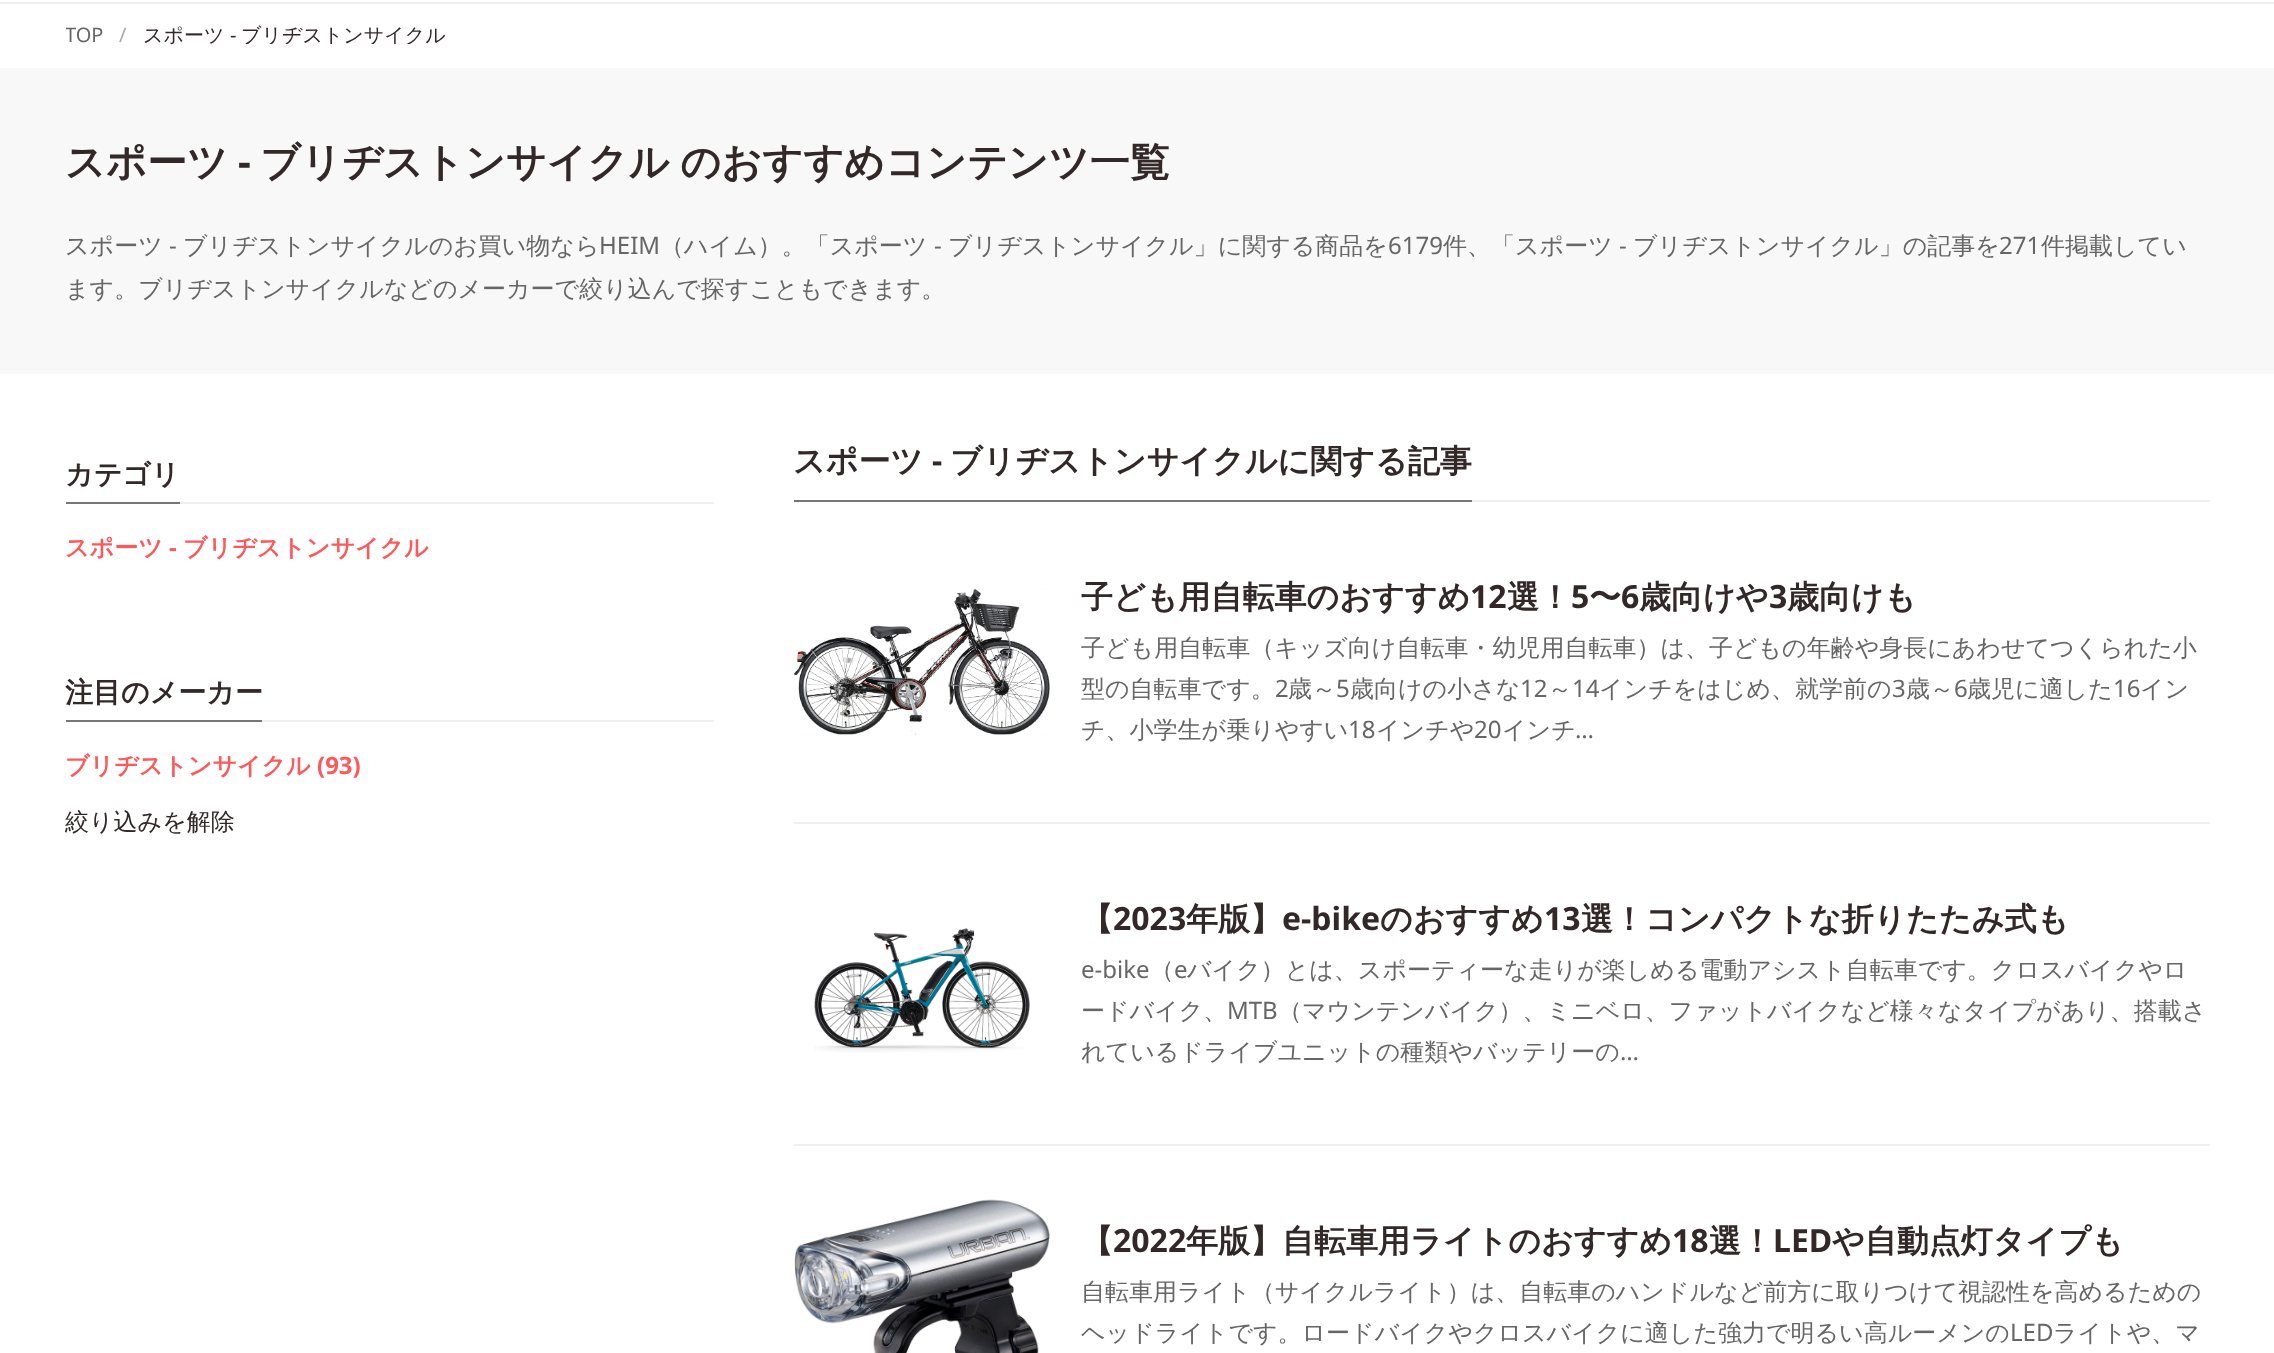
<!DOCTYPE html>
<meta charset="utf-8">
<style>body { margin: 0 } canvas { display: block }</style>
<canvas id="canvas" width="2274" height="1353"></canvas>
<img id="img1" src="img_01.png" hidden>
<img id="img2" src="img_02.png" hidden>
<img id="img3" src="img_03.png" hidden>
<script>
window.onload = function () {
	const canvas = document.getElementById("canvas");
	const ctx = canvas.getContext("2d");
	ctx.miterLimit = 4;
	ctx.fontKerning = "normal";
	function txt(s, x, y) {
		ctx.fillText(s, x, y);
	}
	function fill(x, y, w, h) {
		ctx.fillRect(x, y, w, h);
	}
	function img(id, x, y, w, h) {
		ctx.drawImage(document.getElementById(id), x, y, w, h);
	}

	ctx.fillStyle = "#FFFFFF";
	fill(0, 0, 2274, 1353);
	ctx.fillStyle = "#EFEFEF";
	fill(0, 2, 2274, 2);
	ctx.fillStyle = "#F8F8F8";
	fill(0, 68, 2274, 306);
	ctx.fillStyle = "#EFEFEF";
	fill(180, 502, 534, 2);
	ctx.fillStyle = "#777777";
	fill(66, 502, 114, 2);
	ctx.fillStyle = "#EFEFEF";
	fill(262, 720, 452, 2);
	ctx.fillStyle = "#777777";
	fill(66, 720, 196, 2);
	ctx.fillStyle = "#EFEFEF";
	fill(1472, 500, 738, 2);
	ctx.fillStyle = "#777777";
	fill(794, 500, 678, 2);
	img("img1", 794, 589, 256, 146);
	ctx.fillStyle = "#EFEFEF";
	fill(794, 822, 1416, 2);
	img("img2", 814, 928, 216, 125);
	fill(794, 1144, 1416, 2);
	img("img3", 794, 1199, 256, 154);
	ctx.save();
	ctx.beginPath();
	ctx.rect(66, 4, 2144, 64);
	ctx.clip();
	ctx.font = "20px Noto Sans";
	ctx.fillStyle = "#666666";
	txt("TOP", 65, 42);
	ctx.restore();
	ctx.font = "20px Noto Sans";
	ctx.fillStyle = "#AAAAAA";
	txt("/", 119, 42);
	ctx.font = "500 20px WenQuanYi Zen Hei";
	ctx.fillStyle = "#322828";
	txt("スポーツ", 143, 42);
	ctx.font = "20px Noto Sans";
	txt("-", 230, 42);
	ctx.save();
	ctx.beginPath();
	ctx.rect(142, 24, 342, 20);
	ctx.clip();
	ctx.font = "500 20px WenQuanYi Zen Hei";
	txt("ブリヂストンサイクル", 241, 42);
	ctx.restore();
	ctx.font = "bold 40px WenQuanYi Zen Hei";
	txt("スポーツ", 65, 176);
	ctx.font = "bold 40px Noto Sans";
	txt("-", 238, 176);
	ctx.wordSpacing = "-1px";
	ctx.font = "bold 40px WenQuanYi Zen Hei";
	txt("ブリヂストンサイクル のおすすめコンテンツ一覧", 260, 176);
	ctx.wordSpacing = "0px";
	ctx.font = "500 24px WenQuanYi Zen Hei";
	ctx.fillStyle = "#666666";
	txt("スポーツ", 65, 254);
	ctx.font = "24px Noto Sans";
	txt("-", 169, 254);
	ctx.font = "500 24px WenQuanYi Zen Hei";
	txt("ブリヂストンサイクルのお買い物なら", 183, 254);
	ctx.font = "24px Noto Sans";
	txt("HEIM", 599, 254);
	ctx.font = "500 24px WenQuanYi Zen Hei";
	txt("（ハイム）。「スポーツ", 660, 254);
	ctx.font = "24px Noto Sans";
	txt("-", 934, 254);
	ctx.font = "500 24px WenQuanYi Zen Hei";
	txt("ブリヂストンサイクル」に関する商品を", 948, 254);
	ctx.font = "24px Noto Sans";
	txt("6179", 1388, 254);
	ctx.font = "500 24px WenQuanYi Zen Hei";
	txt("件、「スポーツ", 1443, 254);
	ctx.font = "24px Noto Sans";
	txt("-", 1619, 254);
	ctx.font = "500 24px WenQuanYi Zen Hei";
	txt("ブリヂストンサイクル」の記事を", 1633, 254);
	ctx.font = "24px Noto Sans";
	txt("271", 1999, 254);
	ctx.font = "500 24px WenQuanYi Zen Hei";
	txt("件掲載してい", 2041, 254);
	txt("ます。ブリヂストンサイクルなどのメーカーで絞り込んで探すこともできます。", 65, 297);
	ctx.font = "bold 28px WenQuanYi Zen Hei";
	ctx.fillStyle = "#322828";
	txt("カテゴリ", 65, 484);
	ctx.font = "bold 24px WenQuanYi Zen Hei";
	ctx.fillStyle = "#FF585A";
	txt("スポーツ", 65, 556);
	ctx.font = "bold 24px Noto Sans";
	txt("-", 169, 556);
	ctx.font = "bold 24px WenQuanYi Zen Hei";
	txt("ブリヂストンサイクル", 183, 556);
	ctx.font = "bold 28px WenQuanYi Zen Hei";
	ctx.fillStyle = "#322828";
	txt("注目のメーカー", 65, 702);
	ctx.font = "bold 24px WenQuanYi Zen Hei";
	ctx.fillStyle = "#FF585A";
	txt("ブリヂストンサイクル", 65, 774);
	ctx.font = "bold 24px Noto Sans";
	txt("(93)", 317, 774);
	ctx.font = "500 24px WenQuanYi Zen Hei";
	ctx.fillStyle = "#322828";
	txt("絞り込みを解除", 65, 830);
	ctx.font = "bold 32px WenQuanYi Zen Hei";
	txt("スポーツ", 793, 472);
	ctx.font = "bold 32px Noto Sans";
	txt("-", 932, 472);
	ctx.font = "bold 32px WenQuanYi Zen Hei";
	txt("ブリヂストンサイクルに関する記事", 950, 472);
	txt("子ども用自転車のおすすめ", 1081, 608);
	ctx.font = "bold 32px Noto Sans";
	txt("12", 1470, 608);
	ctx.font = "bold 32px WenQuanYi Zen Hei";
	txt("選！", 1507, 608);
	ctx.font = "bold 32px Noto Sans";
	txt("5", 1571, 608);
	ctx.font = "bold 32px WenQuanYi Zen Hei";
	txt("〜", 1589, 608);
	ctx.font = "bold 32px Noto Sans";
	txt("6", 1621, 608);
	ctx.font = "bold 32px WenQuanYi Zen Hei";
	txt("歳向けや", 1639, 608);
	ctx.font = "bold 32px Noto Sans";
	txt("3", 1769, 608);
	ctx.font = "bold 32px WenQuanYi Zen Hei";
	txt("歳向けも", 1787, 608);
	ctx.font = "500 24px WenQuanYi Zen Hei";
	ctx.fillStyle = "#666666";
	txt("子ども用自転車（キッズ向け自転車・幼児用自転車）は、子どもの年齢や身長にあわせてつくられた小", 1081, 656);
	txt("型の自転車です。", 1081, 697);
	ctx.font = "24px Noto Sans";
	txt("2", 1275, 697);
	ctx.font = "500 24px WenQuanYi Zen Hei";
	txt("歳～", 1288, 697);
	ctx.font = "24px Noto Sans";
	txt("5", 1336, 697);
	ctx.font = "500 24px WenQuanYi Zen Hei";
	txt("歳向けの小さな", 1350, 697);
	ctx.font = "24px Noto Sans";
	txt("12", 1520, 697);
	ctx.font = "500 24px WenQuanYi Zen Hei";
	txt("～", 1548, 697);
	ctx.font = "24px Noto Sans";
	txt("14", 1572, 697);
	ctx.font = "500 24px WenQuanYi Zen Hei";
	txt("インチをはじめ、就学前の", 1599, 697);
	ctx.font = "24px Noto Sans";
	txt("3", 1892, 697);
	ctx.font = "500 24px WenQuanYi Zen Hei";
	txt("歳～", 1906, 697);
	ctx.font = "24px Noto Sans";
	txt("6", 1954, 697);
	ctx.font = "500 24px WenQuanYi Zen Hei";
	txt("歳児に適した", 1967, 697);
	ctx.font = "24px Noto Sans";
	txt("16", 2113, 697);
	ctx.font = "500 24px WenQuanYi Zen Hei";
	txt("イン", 2140, 697);
	txt("チ、小学生が乗りやすい", 1081, 738);
	ctx.font = "24px Noto Sans";
	txt("18", 1348, 738);
	ctx.font = "500 24px WenQuanYi Zen Hei";
	txt("インチや", 1376, 738);
	ctx.font = "24px Noto Sans";
	txt("20", 1474, 738);
	ctx.font = "500 24px WenQuanYi Zen Hei";
	txt("インチ", 1502, 738);
	ctx.font = "24px Noto Sans";
	txt("…", 1575, 738);
	ctx.font = "bold 32px WenQuanYi Zen Hei";
	ctx.fillStyle = "#322828";
	txt("【", 1081, 930);
	ctx.font = "bold 32px Noto Sans";
	txt("2023", 1113, 930);
	ctx.font = "bold 32px WenQuanYi Zen Hei";
	txt("年版】", 1186, 930);
	ctx.font = "bold 32px Noto Sans";
	txt("e-bike", 1282, 930);
	ctx.font = "bold 32px WenQuanYi Zen Hei";
	txt("のおすすめ", 1380, 930);
	ctx.font = "bold 32px Noto Sans";
	txt("13", 1544, 930);
	ctx.font = "bold 32px WenQuanYi Zen Hei";
	txt("選！コンパクトな折りたたみ式も", 1581, 930);
	ctx.font = "24px Noto Sans";
	ctx.fillStyle = "#666666";
	txt("e-bike", 1081, 978);
	ctx.font = "500 24px WenQuanYi Zen Hei";
	txt("（", 1150, 978);
	ctx.font = "24px Noto Sans";
	txt("e", 1174, 978);
	ctx.font = "500 24px WenQuanYi Zen Hei";
	txt("バイク）とは、スポーティーな走りが楽しめる電動アシスト自転車です。クロスバイクやロ", 1187, 978);
	txt("ードバイク、", 1081, 1019);
	ctx.font = "24px Noto Sans";
	txt("MTB", 1227, 1019);
	ctx.font = "500 24px WenQuanYi Zen Hei";
	txt("（マウンテンバイク）、ミニベロ、ファットバイクなど様々なタイプがあり、搭載さ", 1278, 1019);
	txt("れているドライブユニットの種類やバッテリーの", 1081, 1060);
	ctx.font = "24px Noto Sans";
	txt("…", 1620, 1060);
	ctx.font = "bold 32px WenQuanYi Zen Hei";
	ctx.fillStyle = "#322828";
	txt("【", 1081, 1252);
	ctx.font = "bold 32px Noto Sans";
	txt("2022", 1113, 1252);
	ctx.font = "bold 32px WenQuanYi Zen Hei";
	txt("年版】自転車用ライトのおすすめ", 1186, 1252);
	ctx.font = "bold 32px Noto Sans";
	txt("18", 1672, 1252);
	ctx.font = "bold 32px WenQuanYi Zen Hei";
	txt("選！", 1709, 1252);
	ctx.font = "bold 32px Noto Sans";
	txt("LED", 1773, 1252);
	ctx.font = "bold 32px WenQuanYi Zen Hei";
	txt("や自動点灯タイプも", 1832, 1252);
	ctx.font = "500 24px WenQuanYi Zen Hei";
	ctx.fillStyle = "#666666";
	txt("自転車用ライト（サイクルライト）は、自転車のハンドルなど前方に取りつけて視認性を高めるための", 1081, 1300);
	txt("ヘッドライトです。ロードバイクやクロスバイクに適した強力で明るい高ルーメンの", 1081, 1341);
	ctx.font = "24px Noto Sans";
	txt("LED", 2010, 1341);
	ctx.font = "500 24px WenQuanYi Zen Hei";
	txt("ライトや、マ", 2053, 1341);
};
</script>
